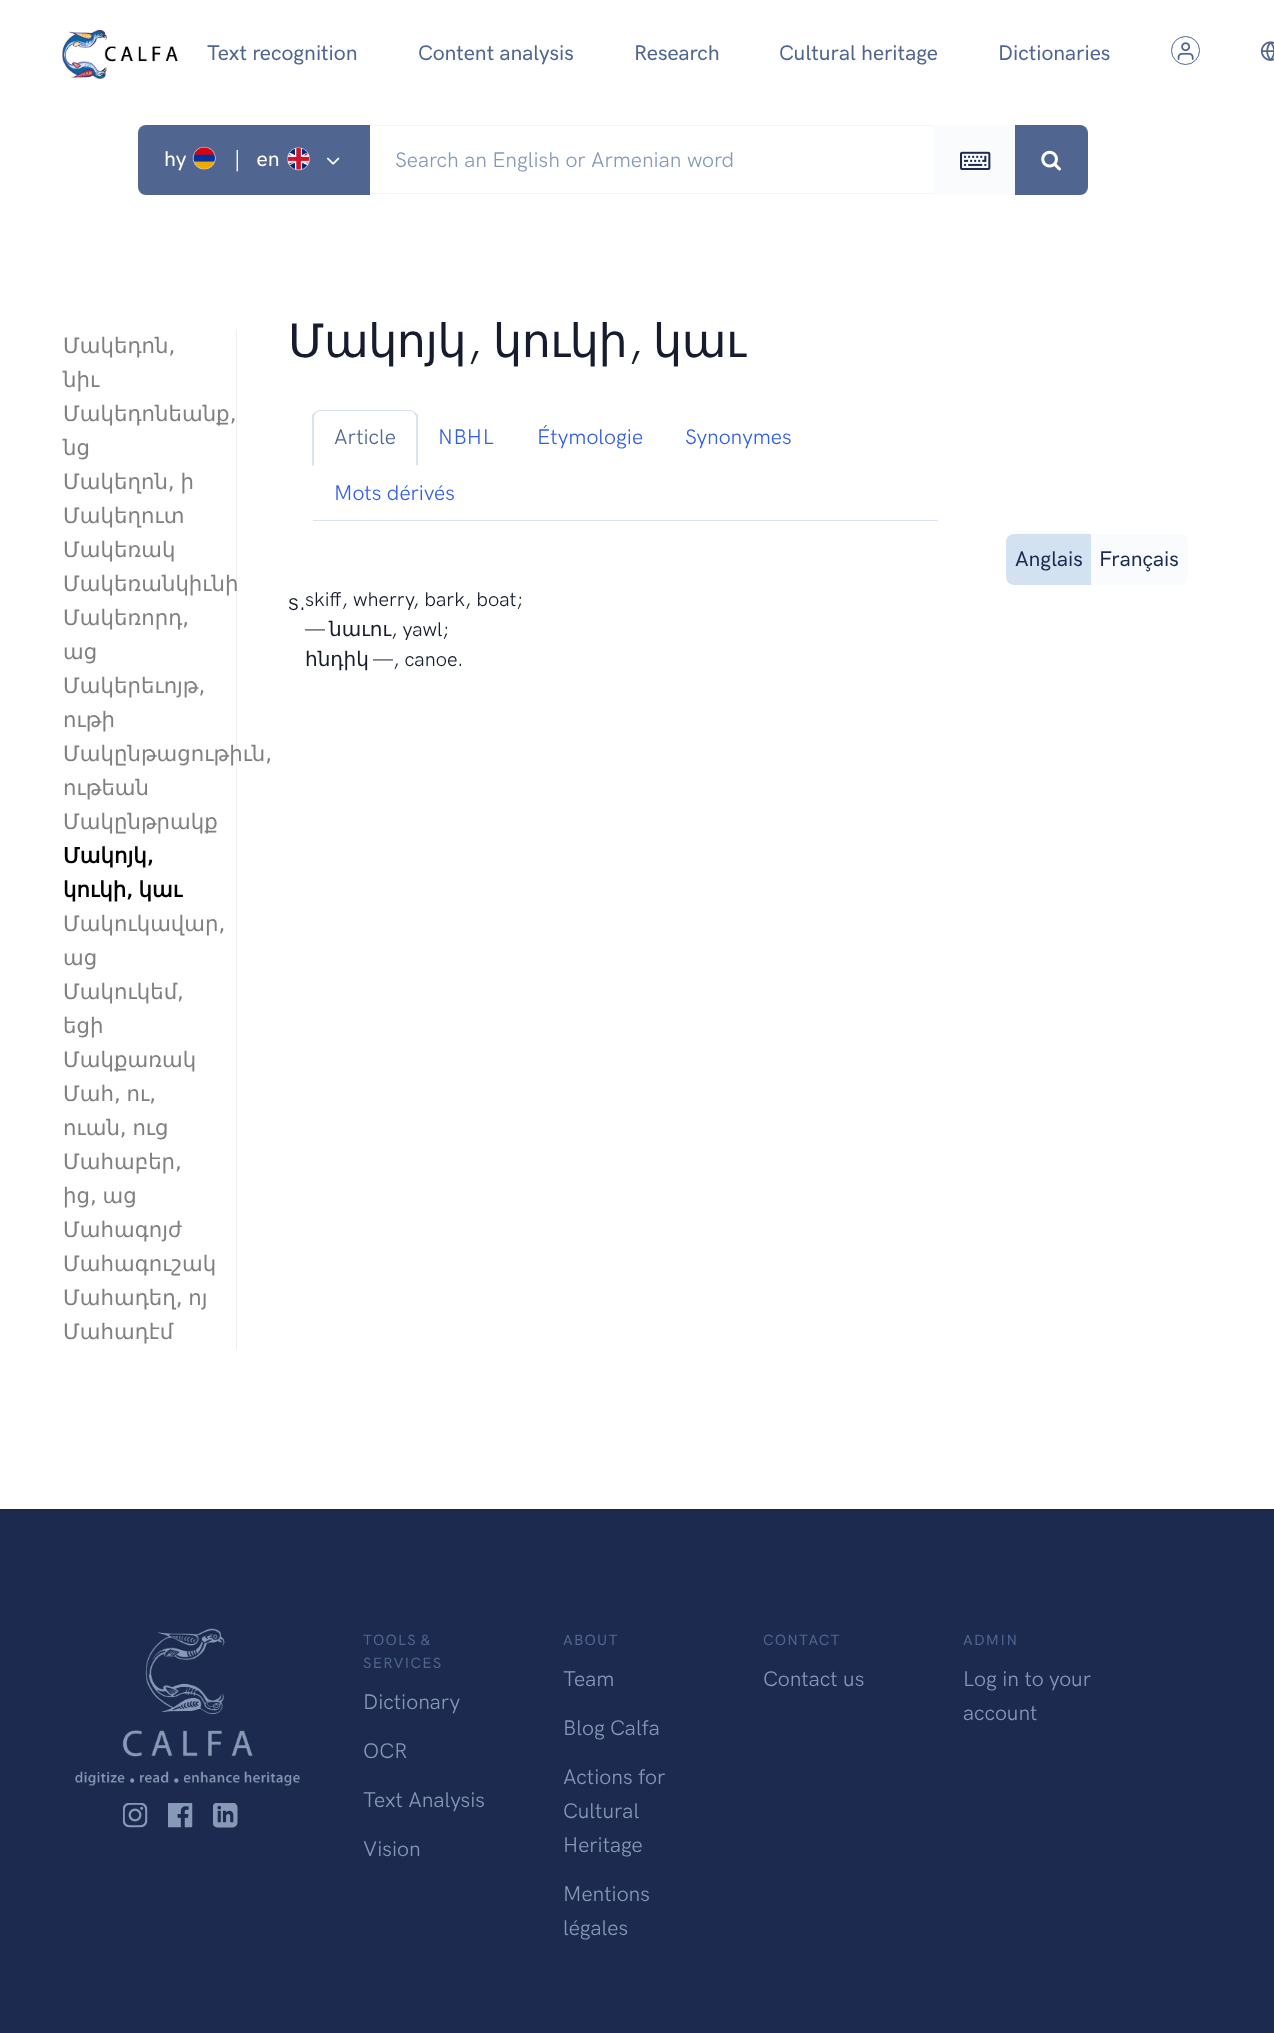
<!DOCTYPE html>
<meta charset="utf-8">
<style>body { margin: 0 } canvas { display: block }</style>
<canvas id="canvas" width="1274" height="2033"></canvas>
<img id="img1" src="img_01.png" hidden>
<img id="img2" src="img_02.png" hidden>
<img id="img3" src="img_03.png" hidden>
<img id="img4" src="img_04.png" hidden>
<img id="img5" src="img_05.png" hidden>
<img id="img6" src="img_06.png" hidden>
<img id="img7" src="img_07.png" hidden>
<img id="img8" src="img_08.png" hidden>
<img id="img9" src="img_09.png" hidden>
<img id="img10" src="img_10.png" hidden>
<img id="img11" src="img_11.png" hidden>
<img id="img12" src="img_12.png" hidden>
<script>
window.onload = function () {
	const canvas = document.getElementById("canvas");
	const ctx = canvas.getContext("2d");
	ctx.miterLimit = 4;
	ctx.fontKerning = "normal";
	function txt(s, x, y) {
		ctx.fillText(s, x, y);
	}
	function fill(x, y, w, h) {
		ctx.fillRect(x, y, w, h);
	}
	function img(id, x, y, w, h) {
		ctx.drawImage(document.getElementById(id), x, y, w, h);
	}

	ctx.fillStyle = "#FFFFFF";
	fill(0, 0, 1274, 2033);
	img("img1", 62, 30, 116, 49);
	ctx.beginPath();
	ctx.arc(1185.5, 50.5, 14, 0, Math.PI * 2);
	ctx.strokeStyle = "#506690";
	ctx.stroke();
	img("img2", 1177, 42, 17, 18);
	img("img3", 1260, 41, 14, 20);
	ctx.strokeStyle = "#F1F4F8";
	ctx.strokeRect(369.5, 125.5, 565, 68);
	ctx.fillStyle = "#506690";
	ctx.beginPath();
	ctx.roundRect(138, 125, 232, 70, [8, 0, 0, 8]);
	ctx.fill();
	img("img4", 192, 146, 24, 24);
	img("img5", 287, 147, 23, 24);
	img("img6", 327, 157, 13, 8);
	ctx.fillStyle = "#F9FBFD";
	fill(934, 125, 81, 70);
	img("img7", 960, 151, 31, 19);
	ctx.fillStyle = "#506690";
	ctx.beginPath();
	ctx.roundRect(1015, 125, 73, 70, [0, 8, 8, 0]);
	ctx.fill();
	img("img8", 1041, 150, 20, 21);
	ctx.fillStyle = "#EEEEEE";
	fill(236, 329, 1, 1020);
	ctx.fillStyle = "#D9E2EF";
	fill(313, 520, 625, 1);
	ctx.beginPath();
	ctx.moveTo(320, 410);
	ctx.bezierCurveTo(318, 410, 316, 411, 315, 412);
	ctx.lineTo(316, 413);
	ctx.bezierCurveTo(317, 412, 318, 411, 320, 411);
	ctx.lineTo(410, 411);
	ctx.bezierCurveTo(412, 411, 413, 412, 414, 413);
	ctx.lineTo(415, 412);
	ctx.bezierCurveTo(414, 411, 412, 410, 410, 410);
	ctx.closePath();
	ctx.fill();
	ctx.beginPath();
	ctx.moveTo(418, 466);
	ctx.lineTo(416, 465);
	ctx.lineTo(416, 418);
	ctx.bezierCurveTo(416, 416, 415, 414, 414, 413);
	ctx.lineTo(415, 412);
	ctx.lineTo(418, 415);
	ctx.closePath();
	ctx.fill();
	ctx.fillStyle = "#FFFFFF";
	ctx.beginPath();
	ctx.moveTo(417, 466);
	ctx.lineTo(313, 466);
	ctx.lineTo(314, 465);
	ctx.lineTo(416, 465);
	ctx.closePath();
	ctx.fill();
	ctx.fillStyle = "#D9E2EF";
	ctx.beginPath();
	ctx.moveTo(312, 415);
	ctx.lineTo(315, 412);
	ctx.lineTo(316, 413);
	ctx.bezierCurveTo(315, 414, 314, 416, 314, 418);
	ctx.lineTo(314, 465);
	ctx.lineTo(312, 466);
	ctx.closePath();
	ctx.fill();
	ctx.fillStyle = "#F9FBFD";
	ctx.beginPath();
	ctx.roundRect(1090, 534, 98, 51, [0, 8, 8, 0]);
	ctx.fill();
	ctx.fillStyle = "#D3E2F0";
	ctx.beginPath();
	ctx.roundRect(1006, 534, 85, 51, [8, 0, 0, 8]);
	ctx.fill();
	ctx.fillStyle = "#1B2A4E";
	fill(0, 1509, 1274, 524);
	img("img9", 75, 1628, 225, 158);
	img("img10", 123, 1803, 25, 25);
	img("img11", 168, 1803, 25, 25);
	img("img12", 213, 1803, 25, 25);
	ctx.font = "500 21.25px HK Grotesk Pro";
	ctx.fillStyle = "#506690";
	txt("Text recognition", 207, 60);
	txt("Content analysis", 418, 60);
	txt("Research", 634, 60);
	txt("Cultural heritage", 779, 60);
	txt("Dictionaries", 998, 60);
	ctx.fillStyle = "#FFFFFF";
	txt("hy", 164, 166);
	txt("|   en", 234, 166);
	ctx.font = "21.25px HK Grotesk Pro";
	ctx.fillStyle = "#869AB8";
	txt("Search an English or Armenian word", 395, 167);
	ctx.font = "21.25px DejaVu Sans";
	ctx.fillStyle = "#808080";
	txt("Մակեդոն,", 63, 353);
	txt("նիւ", 63, 387);
	txt("Մակեդոնեանք,", 63, 421);
	txt("նց", 63, 455);
	ctx.wordSpacing = "-1px";
	txt("Մակեղոն, ի", 63, 489);
	ctx.wordSpacing = "0px";
	txt("Մակեղուտ", 63, 523);
	txt("Մակեռակ", 63, 557);
	txt("Մակեռանկիւնի", 63, 591);
	txt("Մակեռորդ,", 63, 625);
	txt("աց", 63, 659);
	txt("Մակերեւոյթ,", 63, 693);
	txt("ութի", 63, 727);
	txt("Մակընթացութիւն,", 63, 761);
	txt("ութեան", 63, 795);
	txt("Մակընթրակք", 63, 829);
	ctx.font = "bold 21.25px DejaVu Sans";
	ctx.fillStyle = "#000000";
	txt("Մակոյկ,", 63, 863);
	ctx.wordSpacing = "-1px";
	txt("կուկի, կաւ", 63, 897);
	ctx.wordSpacing = "0px";
	ctx.font = "21.25px DejaVu Sans";
	ctx.fillStyle = "#808080";
	txt("Մակուկավար,", 63, 931);
	txt("աց", 63, 965);
	txt("Մակուկեմ,", 63, 999);
	txt("եցի", 63, 1033);
	txt("Մակքառակ", 63, 1067);
	ctx.wordSpacing = "-1px";
	txt("Մահ, ու,", 63, 1101);
	txt("ուան, ուց", 63, 1135);
	ctx.wordSpacing = "0px";
	txt("Մահաբեր,", 63, 1169);
	ctx.wordSpacing = "-1px";
	txt("ից, աց", 63, 1203);
	ctx.wordSpacing = "0px";
	txt("Մահագոյժ", 63, 1237);
	txt("Մահագուշակ", 63, 1271);
	ctx.wordSpacing = "-1px";
	txt("Մահադեղ, ոյ", 63, 1305);
	ctx.wordSpacing = "0px";
	txt("Մահադէմ", 63, 1339);
	ctx.letterSpacing = "-0.5px";
	ctx.font = "46px DejaVu Sans";
	ctx.fillStyle = "#161C2D";
	txt("Մակոյկ", 288, 357);
	ctx.font = "46px HK Grotesk Pro";
	txt(",", 467, 357);
	ctx.font = "46px DejaVu Sans";
	txt("կուկի", 493, 357);
	ctx.font = "46px HK Grotesk Pro";
	txt(",", 628, 357);
	ctx.font = "46px DejaVu Sans";
	txt("կաւ", 653, 357);
	ctx.letterSpacing = "0px";
	ctx.font = "21.25px HK Grotesk Pro";
	ctx.fillStyle = "#506690";
	txt("Article", 334, 444);
	ctx.fillStyle = "#335EEA";
	txt("NBHL", 438, 444);
	txt("Étymologie", 537, 444);
	txt("Synonymes", 685, 444);
	txt("Mots dérivés", 334, 500);
	ctx.font = "500 21.25px HK Grotesk Pro";
	ctx.fillStyle = "#1B2A4E";
	txt("Anglais", 1015, 566);
	txt("Français", 1099, 566);
	ctx.font = "24px HK Grotesk Pro";
	ctx.fillStyle = "#161C2D";
	txt("s.", 288, 610);
	ctx.font = "20px HK Grotesk Pro";
	txt("skiff, wherry, bark, boat;", 305, 606);
	txt("—", 305, 636);
	ctx.font = "20px DejaVu Sans";
	txt("նաւու", 329, 636);
	ctx.font = "20px HK Grotesk Pro";
	txt(", yawl;", 391, 636);
	ctx.font = "20px DejaVu Sans";
	txt("հնդիկ", 305, 666);
	ctx.font = "20px HK Grotesk Pro";
	txt("—, canoe.", 373, 666);
	ctx.letterSpacing = "1.25px";
	ctx.wordSpacing = "-1px";
	ctx.font = "500 15px HK Grotesk Pro";
	ctx.fillStyle = "#506690";
	txt("TOOLS &", 363, 1645);
	ctx.wordSpacing = "0px";
	txt("SERVICES", 363, 1668);
	ctx.letterSpacing = "0px";
	ctx.font = "21.25px HK Grotesk Pro";
	ctx.fillStyle = "#869AB8";
	txt("Dictionary", 363, 1709);
	txt("OCR", 363, 1758);
	txt("Text Analysis", 363, 1807);
	txt("Vision", 363, 1856);
	ctx.letterSpacing = "1.25px";
	ctx.font = "500 15px HK Grotesk Pro";
	ctx.fillStyle = "#506690";
	txt("ABOUT", 563, 1645);
	ctx.letterSpacing = "0px";
	ctx.font = "21.25px HK Grotesk Pro";
	ctx.fillStyle = "#869AB8";
	txt("Team", 563, 1686);
	txt("Blog Calfa", 563, 1735);
	txt("Actions for", 563, 1784);
	txt("Cultural", 563, 1818);
	txt("Heritage", 563, 1852);
	txt("Mentions", 563, 1901);
	txt("légales", 563, 1935);
	ctx.letterSpacing = "1.25px";
	ctx.font = "500 15px HK Grotesk Pro";
	ctx.fillStyle = "#506690";
	txt("CONTACT", 763, 1645);
	ctx.letterSpacing = "0px";
	ctx.font = "21.25px HK Grotesk Pro";
	ctx.fillStyle = "#869AB8";
	txt("Contact us", 763, 1686);
	ctx.letterSpacing = "1.25px";
	ctx.font = "500 15px HK Grotesk Pro";
	ctx.fillStyle = "#506690";
	txt("ADMIN", 963, 1645);
	ctx.letterSpacing = "0px";
	ctx.font = "21.25px HK Grotesk Pro";
	ctx.fillStyle = "#869AB8";
	txt("Log in to your", 963, 1686);
	txt("account", 963, 1720);
};
</script>
